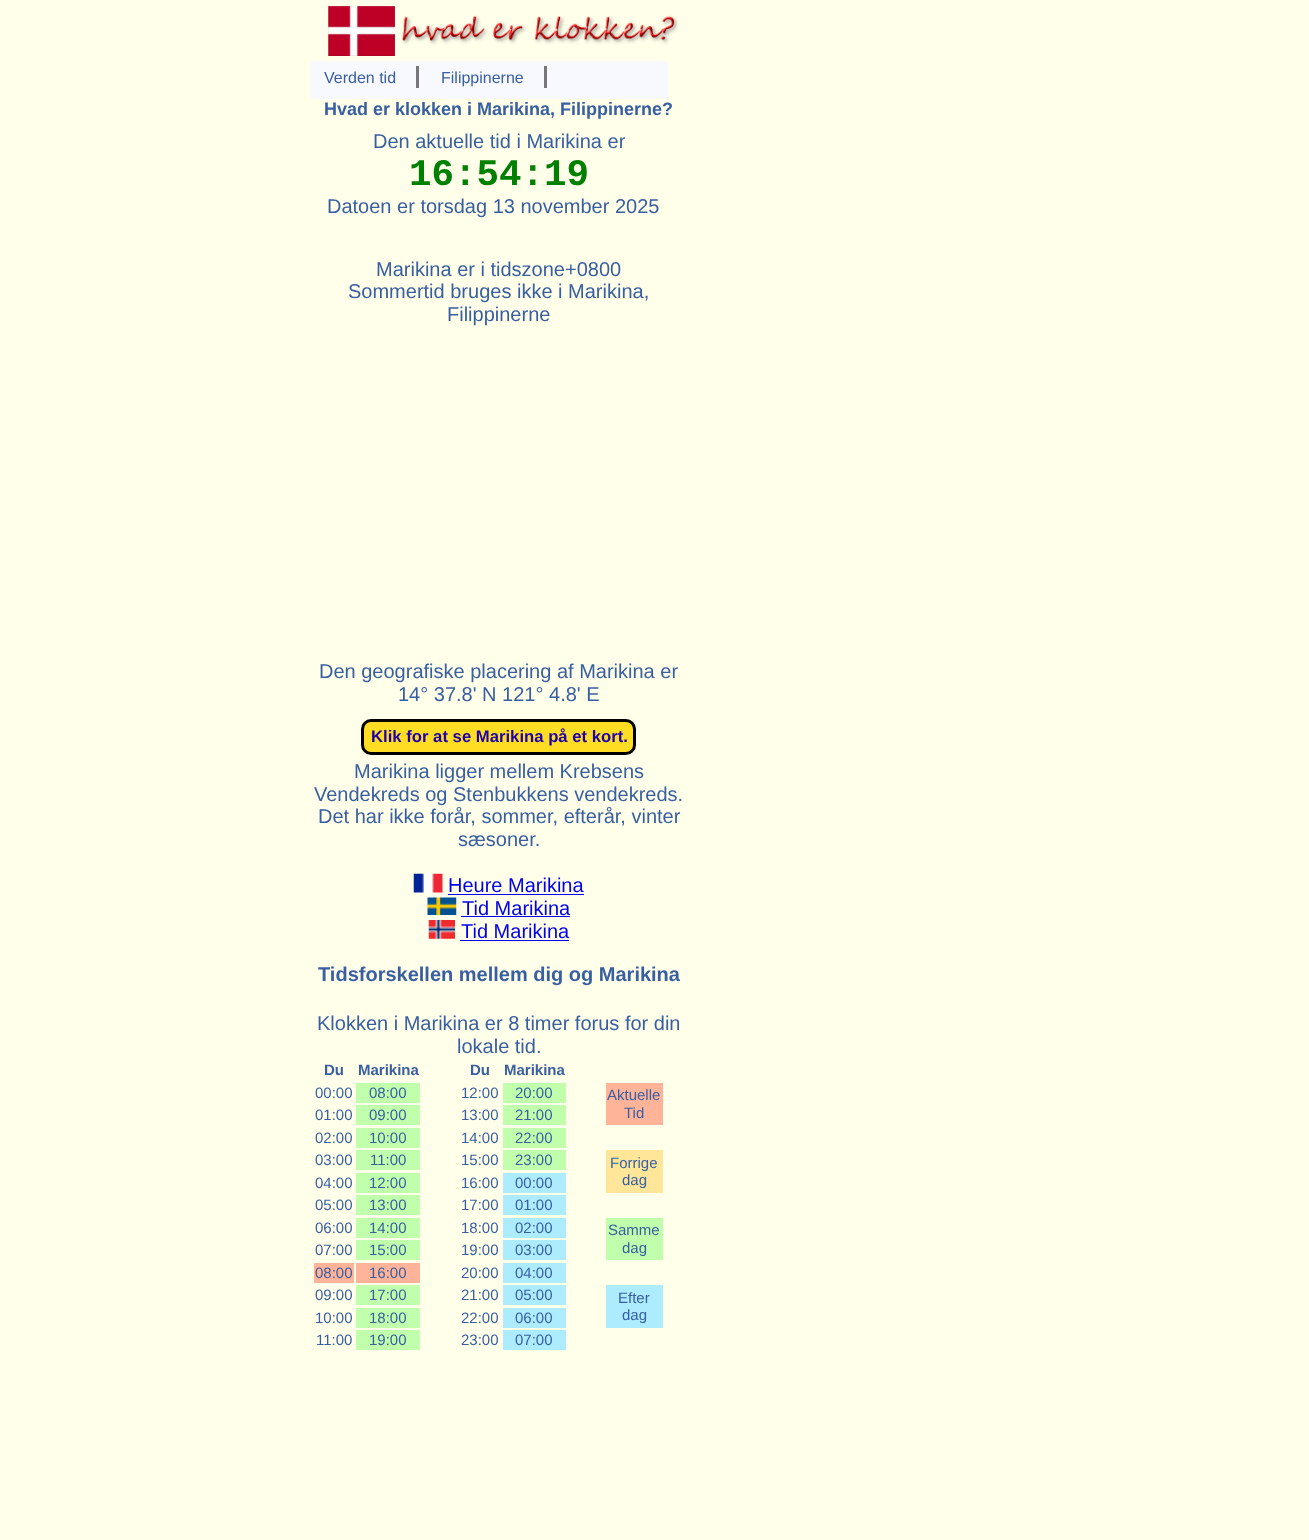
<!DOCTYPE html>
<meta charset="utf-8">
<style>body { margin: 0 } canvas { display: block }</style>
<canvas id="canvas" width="1309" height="1540"></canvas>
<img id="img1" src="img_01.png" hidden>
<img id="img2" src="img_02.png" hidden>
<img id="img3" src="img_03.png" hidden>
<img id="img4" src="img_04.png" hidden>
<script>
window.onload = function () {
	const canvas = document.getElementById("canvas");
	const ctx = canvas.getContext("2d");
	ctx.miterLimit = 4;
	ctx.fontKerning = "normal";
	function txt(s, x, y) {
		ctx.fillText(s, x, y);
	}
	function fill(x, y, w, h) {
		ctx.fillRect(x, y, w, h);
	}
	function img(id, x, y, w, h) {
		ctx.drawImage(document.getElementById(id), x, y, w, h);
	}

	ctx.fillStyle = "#FFFFEA";
	fill(0, 0, 1309, 1540);
	ctx.fillStyle = "#F8F8FF";
	fill(311, 61, 357, 38);
	img("img1", 321, 0, 357, 62);
	ctx.fillStyle = "#777777";
	fill(416, 66, 3, 22);
	fill(544, 66, 3, 22);
	ctx.fillStyle = "#FFDD22";
	ctx.beginPath();
	ctx.roundRect(362.5, 720.5, 272, 33, 8.5);
	ctx.fill();
	ctx.strokeStyle = "#000000";
	ctx.lineWidth = 3;
	ctx.stroke();
	img("img2", 413, 873, 30, 20);
	ctx.fillStyle = "#0000EE";
	fill(448, 894, 136, 1);
	img("img3", 427, 897, 30, 18);
	fill(461, 916, 109, 1);
	img("img4", 428, 920, 27, 19);
	fill(460, 940, 109, 1);
	ctx.fillStyle = "#C2FFAD";
	fill(356, 1083, 64, 20);
	fill(503, 1083, 63, 20);
	ctx.fillStyle = "#FFB399";
	fill(606, 1083, 57, 42);
	ctx.fillStyle = "#C2FFAD";
	fill(356, 1105, 64, 20);
	fill(503, 1105, 63, 20);
	fill(356, 1128, 64, 20);
	fill(503, 1128, 63, 20);
	fill(356, 1150, 64, 20);
	fill(503, 1150, 63, 20);
	ctx.fillStyle = "#FFE699";
	fill(606, 1150, 57, 43);
	ctx.fillStyle = "#C2FFAD";
	fill(356, 1173, 64, 20);
	ctx.fillStyle = "#ADEBFF";
	fill(503, 1173, 63, 20);
	ctx.fillStyle = "#C2FFAD";
	fill(356, 1195, 64, 20);
	ctx.fillStyle = "#ADEBFF";
	fill(503, 1195, 63, 20);
	ctx.fillStyle = "#C2FFAD";
	fill(356, 1218, 64, 20);
	ctx.fillStyle = "#ADEBFF";
	fill(503, 1218, 63, 20);
	ctx.fillStyle = "#C2FFAD";
	fill(606, 1218, 57, 42);
	fill(356, 1240, 64, 20);
	ctx.fillStyle = "#ADEBFF";
	fill(503, 1240, 63, 20);
	ctx.fillStyle = "#FFB399";
	fill(314, 1263, 40, 20);
	fill(356, 1263, 64, 20);
	ctx.fillStyle = "#ADEBFF";
	fill(503, 1263, 63, 20);
	ctx.fillStyle = "#C2FFAD";
	fill(356, 1285, 64, 20);
	ctx.fillStyle = "#ADEBFF";
	fill(503, 1285, 63, 20);
	fill(606, 1285, 57, 43);
	ctx.fillStyle = "#C2FFAD";
	fill(356, 1308, 64, 20);
	ctx.fillStyle = "#ADEBFF";
	fill(503, 1308, 63, 20);
	ctx.fillStyle = "#C2FFAD";
	fill(356, 1330, 64, 20);
	ctx.fillStyle = "#ADEBFF";
	fill(503, 1330, 63, 20);
	ctx.font = "16px Liberation Sans";
	ctx.fillStyle = "#385FA2";
	txt("Verden tid", 324, 83);
	txt("Filippinerne", 441, 83);
	ctx.font = "bold 18px Liberation Sans";
	txt("Hvad er klokken i Marikina, Filippinerne?", 324, 115);
	ctx.font = "20px Liberation Sans";
	txt("Den aktuelle tid i Marikina er", 373, 148);
	ctx.font = "bold 37.5px Liberation Mono";
	ctx.fillStyle = "#008000";
	txt("16:54:19", 409, 185);
	ctx.font = "20px Liberation Sans";
	ctx.fillStyle = "#385FA2";
	txt("Datoen er torsdag 13 november 2025", 327, 213);
	txt("Marikina er i tidszone+0800", 376, 276);
	txt("Sommertid bruges ikke i Marikina,", 348, 298);
	txt("Filippinerne", 447, 321);
	txt("Den geografiske placering af Marikina er", 319, 678);
	txt("14° 37.8' N 121° 4.8' E", 398, 701);
	ctx.font = "bold 16.7px Liberation Sans";
	ctx.fillStyle = "#1F00AE";
	txt("Klik for at se Marikina på et kort.", 371, 742);
	ctx.font = "20px Liberation Sans";
	ctx.fillStyle = "#385FA2";
	txt("Marikina ligger mellem Krebsens", 354, 778);
	txt("Vendekreds og Stenbukkens vendekreds.", 314, 801);
	txt("Det har ikke forår, sommer, efterår, vinter", 318, 823);
	txt("sæsoner.", 458, 846);
	ctx.fillStyle = "#0000EE";
	txt("Heure Marikina", 448, 892);
	txt("Tid Marikina", 462, 915);
	txt("Tid Marikina", 461, 938);
	ctx.font = "bold 20px Liberation Sans";
	ctx.fillStyle = "#385FA2";
	txt("Tidsforskellen mellem dig og Marikina", 318, 981);
	ctx.font = "20px Liberation Sans";
	txt("Klokken i Marikina er 8 timer forus for din", 317, 1030);
	txt("lokale tid.", 457, 1053);
	ctx.font = "bold 15px Liberation Sans";
	txt("Du", 324, 1075);
	txt("Marikina", 358, 1075);
	txt("Du", 470, 1075);
	txt("Marikina", 504, 1075);
	ctx.font = "15px Liberation Sans";
	txt("00:00", 315, 1098);
	txt("08:00", 369, 1098);
	txt("12:00", 461, 1098);
	txt("20:00", 515, 1098);
	txt("Aktuelle", 607, 1100);
	txt("Tid", 624, 1118);
	txt("01:00", 315, 1120);
	txt("09:00", 369, 1120);
	txt("13:00", 461, 1120);
	txt("21:00", 515, 1120);
	txt("02:00", 315, 1143);
	txt("10:00", 369, 1143);
	txt("14:00", 461, 1143);
	txt("22:00", 515, 1143);
	txt("03:00", 315, 1165);
	txt("11:00", 370, 1165);
	txt("15:00", 461, 1165);
	txt("23:00", 515, 1165);
	txt("Forrige", 610, 1168);
	txt("dag", 622, 1185);
	txt("04:00", 315, 1188);
	txt("12:00", 369, 1188);
	txt("16:00", 461, 1188);
	txt("00:00", 515, 1188);
	txt("05:00", 315, 1210);
	txt("13:00", 369, 1210);
	txt("17:00", 461, 1210);
	txt("01:00", 515, 1210);
	txt("06:00", 315, 1233);
	txt("14:00", 369, 1233);
	txt("18:00", 461, 1233);
	txt("02:00", 515, 1233);
	txt("Samme", 608, 1235);
	txt("dag", 622, 1253);
	txt("07:00", 315, 1255);
	txt("15:00", 369, 1255);
	txt("19:00", 461, 1255);
	txt("03:00", 515, 1255);
	txt("08:00", 315, 1278);
	txt("16:00", 369, 1278);
	txt("20:00", 461, 1278);
	txt("04:00", 515, 1278);
	txt("09:00", 315, 1300);
	txt("17:00", 369, 1300);
	txt("21:00", 461, 1300);
	txt("05:00", 515, 1300);
	txt("Efter", 618, 1303);
	txt("dag", 622, 1320);
	txt("10:00", 315, 1323);
	txt("18:00", 369, 1323);
	txt("22:00", 461, 1323);
	txt("06:00", 515, 1323);
	txt("11:00", 316, 1345);
	txt("19:00", 369, 1345);
	txt("23:00", 461, 1345);
	txt("07:00", 515, 1345);
};
</script>
